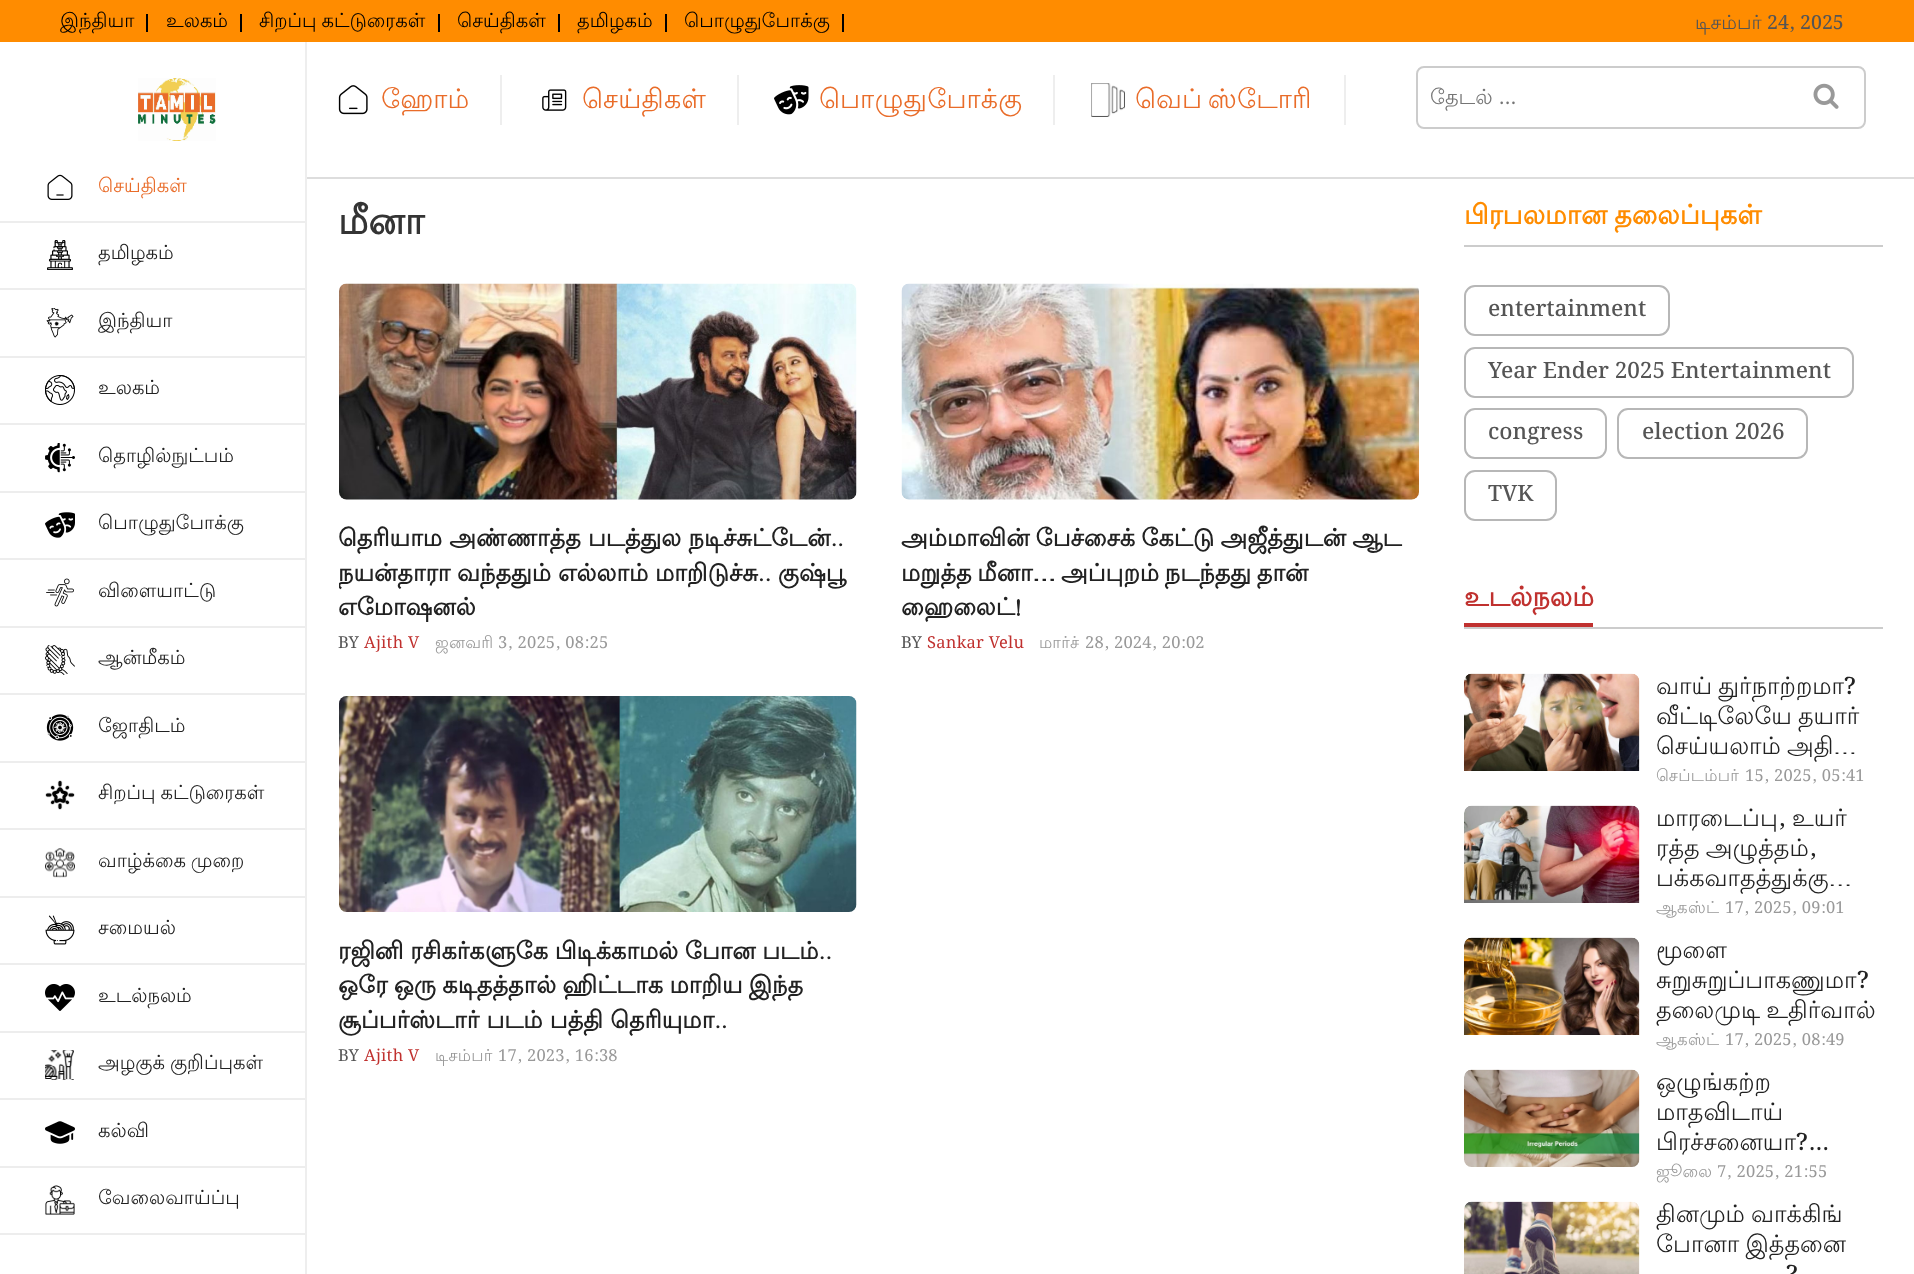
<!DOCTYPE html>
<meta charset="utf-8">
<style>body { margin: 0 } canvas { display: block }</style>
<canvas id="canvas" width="1914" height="1274"></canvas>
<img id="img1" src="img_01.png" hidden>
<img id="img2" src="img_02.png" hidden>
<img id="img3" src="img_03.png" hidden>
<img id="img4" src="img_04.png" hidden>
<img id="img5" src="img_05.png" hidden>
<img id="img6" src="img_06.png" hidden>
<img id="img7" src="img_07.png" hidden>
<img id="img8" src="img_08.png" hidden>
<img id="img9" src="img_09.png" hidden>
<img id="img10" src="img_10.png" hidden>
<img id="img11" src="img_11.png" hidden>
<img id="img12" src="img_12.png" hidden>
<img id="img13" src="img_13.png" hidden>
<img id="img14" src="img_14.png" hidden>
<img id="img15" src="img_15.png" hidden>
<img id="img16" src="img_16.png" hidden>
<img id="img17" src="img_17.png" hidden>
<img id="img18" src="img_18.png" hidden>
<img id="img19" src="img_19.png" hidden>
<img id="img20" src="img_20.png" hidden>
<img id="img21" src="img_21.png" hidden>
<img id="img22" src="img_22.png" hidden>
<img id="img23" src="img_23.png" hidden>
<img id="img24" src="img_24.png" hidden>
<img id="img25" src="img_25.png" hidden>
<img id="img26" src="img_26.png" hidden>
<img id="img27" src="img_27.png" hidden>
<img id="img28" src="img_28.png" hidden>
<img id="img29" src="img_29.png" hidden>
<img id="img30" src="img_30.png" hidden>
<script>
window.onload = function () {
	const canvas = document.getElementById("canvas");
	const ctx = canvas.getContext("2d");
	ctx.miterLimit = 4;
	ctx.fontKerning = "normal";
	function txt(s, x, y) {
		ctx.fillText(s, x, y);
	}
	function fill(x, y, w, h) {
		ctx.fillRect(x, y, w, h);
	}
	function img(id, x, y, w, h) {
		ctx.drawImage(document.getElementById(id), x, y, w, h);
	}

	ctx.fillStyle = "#FFFFFF";
	fill(0, 0, 1914, 1274);
	ctx.fillStyle = "#FF8C00";
	fill(0, 0, 1914, 42);
	ctx.fillStyle = "#000000";
	fill(146, 14, 2, 18);
	fill(240, 14, 2, 18);
	fill(438, 14, 2, 18);
	fill(558, 14, 2, 18);
	fill(665, 14, 2, 18);
	fill(842, 14, 2, 18);
	ctx.fillStyle = "#DDDDDD";
	fill(307, 177, 1607, 2);
	ctx.fillStyle = "#EEEEEE";
	fill(305, 42, 2, 1232);
	img("img1", 138, 78, 78, 63);
	fill(500, 75, 2, 50);
	img("img2", 338, 85, 30, 30);
	fill(737, 75, 2, 50);
	img("img3", 542, 89, 25, 22);
	fill(1053, 75, 2, 50);
	img("img4", 774, 85, 35, 30);
	fill(1344, 75, 2, 50);
	img("img5", 1091, 83, 34, 34);
	ctx.beginPath();
	ctx.roundRect(1417, 67, 448, 61, 7);
	ctx.strokeStyle = "#CCCCCC";
	ctx.lineWidth = 2;
	ctx.stroke();
	img("img6", 1813, 83, 26, 26);
	ctx.fillStyle = "#EDEDED";
	fill(0, 221, 305, 2);
	img("img7", 47, 174, 26, 26);
	fill(0, 288, 305, 2);
	img("img8", 47, 240, 26, 30);
	fill(0, 356, 305, 2);
	img("img9", 46, 308, 28, 30);
	fill(0, 423, 305, 2);
	img("img10", 45, 375, 30, 30);
	fill(0, 491, 305, 2);
	img("img11", 45, 443, 30, 30);
	fill(0, 558, 305, 2);
	img("img12", 45, 512, 30, 26);
	fill(0, 626, 305, 2);
	img("img13", 46, 578, 28, 29);
	fill(0, 693, 305, 2);
	img("img14", 45, 645, 30, 30);
	fill(0, 761, 305, 2);
	img("img15", 46, 714, 28, 27);
	fill(0, 828, 305, 2);
	img("img16", 45, 780, 30, 30);
	fill(0, 896, 305, 2);
	img("img17", 45, 848, 30, 30);
	fill(0, 963, 305, 2);
	img("img18", 45, 915, 30, 30);
	fill(0, 1031, 305, 2);
	img("img19", 45, 984, 30, 27);
	fill(0, 1098, 305, 2);
	img("img20", 45, 1050, 29, 30);
	fill(0, 1166, 305, 2);
	img("img21", 45, 1121, 30, 23);
	fill(0, 1233, 305, 2);
	img("img22", 45, 1185, 30, 30);
	img("img23", 339, 283, 518, 217);
	img("img24", 901, 283, 518, 217);
	img("img25", 339, 696, 518, 216);
	ctx.fillStyle = "#CCCCCC";
	fill(1464, 245, 419, 2);
	ctx.beginPath();
	ctx.roundRect(1465, 286, 204, 49, 10);
	ctx.strokeStyle = "#B7B7B7";
	ctx.stroke();
	ctx.beginPath();
	ctx.roundRect(1465, 348, 388, 49, 10);
	ctx.stroke();
	ctx.beginPath();
	ctx.roundRect(1465, 409, 141, 49, 10);
	ctx.stroke();
	ctx.beginPath();
	ctx.roundRect(1618, 409, 189, 49, 10);
	ctx.stroke();
	ctx.beginPath();
	ctx.roundRect(1465, 471, 91, 49, 10);
	ctx.stroke();
	ctx.fillStyle = "#C0312F";
	fill(1464, 623, 129, 4);
	ctx.fillStyle = "#CCCCCC";
	fill(1464, 627, 419, 2);
	img("img26", 1464, 673, 176, 98);
	img("img27", 1464, 805, 176, 98);
	img("img28", 1464, 937, 176, 98);
	img("img29", 1464, 1069, 176, 98);
	img("img30", 1464, 1201, 176, 73);
	ctx.font = "19.5px Lohit Tamil";
	ctx.fillStyle = "#000000";
	txt("இந்தியா", 60, 27);
	txt("உலகம்", 166, 27);
	ctx.wordSpacing = "-1px";
	txt("சிறப்பு கட்டுரைகள்", 259, 27);
	ctx.wordSpacing = "0px";
	txt("செய்திகள்", 457, 27);
	txt("தமிழகம்", 577, 27);
	txt("பொழுதுபோக்கு", 684, 27);
	ctx.fillStyle = "#555555";
	txt("டிசம்பர்", 1695, 29);
	ctx.font = "500 19.5px Noto Serif Bengali";
	txt("24, 2025", 1767, 29);
	ctx.letterSpacing = "0.25px";
	ctx.font = "27px Lohit Tamil";
	ctx.fillStyle = "#E96C29";
	txt("ஹோம்", 381, 108);
	txt("செய்திகள்", 582, 108);
	txt("பொழுதுபோக்கு", 819, 108);
	ctx.wordSpacing = "-3px";
	txt("வெப் ஸ்டோரி", 1135, 108);
	ctx.letterSpacing = "0px";
	ctx.wordSpacing = "0px";
	ctx.font = "21px Lohit Tamil";
	ctx.fillStyle = "#757575";
	txt("தேடல்", 1430, 104);
	ctx.font = "21px Noto Serif Bengali";
	txt("…", 1498, 104);
	ctx.font = "19.5px Lohit Tamil";
	ctx.fillStyle = "#E96C29";
	txt("செய்திகள்", 98, 192);
	ctx.fillStyle = "#222222";
	txt("தமிழகம்", 98, 259);
	txt("இந்தியா", 98, 327);
	txt("உலகம்", 98, 394);
	txt("தொழில்நுட்பம்", 98, 462);
	txt("பொழுதுபோக்கு", 98, 529);
	txt("விளையாட்டு", 98, 597);
	txt("ஆன்மீகம்", 98, 664);
	txt("ஜோதிடம்", 98, 732);
	ctx.wordSpacing = "-1px";
	txt("சிறப்பு கட்டுரைகள்", 98, 799);
	txt("வாழ்க்கை முறை", 98, 867);
	ctx.wordSpacing = "0px";
	txt("சமையல்", 98, 934);
	txt("உடல்நலம்", 98, 1002);
	ctx.wordSpacing = "-1px";
	txt("அழகுக் குறிப்புகள்", 98, 1069);
	ctx.wordSpacing = "0px";
	txt("கல்வி", 98, 1137);
	txt("வேலைவாய்ப்பு", 98, 1204);
	ctx.font = "bold 37.5px Lohit Tamil";
	ctx.fillStyle = "#343434";
	txt("மீனா", 338, 234);
	ctx.font = "bold 24px Lohit Tamil";
	ctx.fillStyle = "#222222";
	txt("தெரியாம அண்ணாத்த படத்துல நடிச்சுட்டேன்..", 338, 546);
	ctx.save();
	ctx.beginPath();
	ctx.rect(339, 522, 518, 104);
	ctx.clip();
	ctx.wordSpacing = "-0.5px";
	txt("நயன்தாரா வந்ததும் எல்லாம் மாறிடுச்சு.. குஷ்பூ", 338, 581);
	ctx.restore();
	txt("எமோஷனல்", 338, 615);
	ctx.letterSpacing = "0.25px";
	ctx.font = "16.5px Noto Serif Bengali";
	ctx.fillStyle = "#555555";
	txt("BY", 338, 648);
	ctx.fillStyle = "#C0312F";
	txt("Ajith V", 364, 648);
	ctx.font = "16.5px Lohit Tamil";
	ctx.fillStyle = "#999999";
	txt("ஜனவரி", 435, 648);
	ctx.font = "16.5px Noto Serif Bengali";
	txt("3, 2025, 08:25", 498, 648);
	ctx.letterSpacing = "0px";
	ctx.wordSpacing = "-1px";
	ctx.font = "bold 24px Lohit Tamil";
	ctx.fillStyle = "#222222";
	txt("அம்மாவின் பேச்சைக் கேட்டு அஜீத்துடன் ஆட", 901, 546);
	ctx.wordSpacing = "-1.5px";
	txt("மறுத்த மீனா… அப்புறம் நடந்தது தான்", 901, 581);
	ctx.wordSpacing = "0px";
	txt("ஹைலைட்!", 901, 615);
	ctx.letterSpacing = "0.25px";
	ctx.font = "16.5px Noto Serif Bengali";
	ctx.fillStyle = "#555555";
	txt("BY", 901, 648);
	ctx.fillStyle = "#C0312F";
	txt("Sankar Velu", 927, 648);
	ctx.font = "16.5px Lohit Tamil";
	ctx.fillStyle = "#999999";
	txt("மார்ச்", 1039, 648);
	ctx.font = "16.5px Noto Serif Bengali";
	txt("28, 2024, 20:02", 1085, 648);
	ctx.letterSpacing = "0px";
	ctx.wordSpacing = "-0.5px";
	ctx.font = "bold 24px Lohit Tamil";
	ctx.fillStyle = "#222222";
	txt("ரஜினி ரசிகர்களுகே பிடிக்காமல் போன படம்..", 338, 959);
	ctx.wordSpacing = "-1px";
	txt("ஒரே ஒரு கடிதத்தால் ஹிட்டாக மாறிய இந்த", 338, 993);
	ctx.wordSpacing = "0px";
	txt("சூப்பர்ஸ்டார் படம் பத்தி தெரியுமா..", 338, 1028);
	ctx.letterSpacing = "0.25px";
	ctx.font = "16.5px Noto Serif Bengali";
	ctx.fillStyle = "#555555";
	txt("BY", 338, 1061);
	ctx.fillStyle = "#C0312F";
	txt("Ajith V", 364, 1061);
	ctx.font = "16.5px Lohit Tamil";
	ctx.fillStyle = "#999999";
	txt("டிசம்பர்", 435, 1061);
	ctx.font = "16.5px Noto Serif Bengali";
	txt("17, 2023, 16:38", 498, 1061);
	ctx.letterSpacing = "0px";
	ctx.wordSpacing = "-1px";
	ctx.font = "bold 27px Lohit Tamil";
	ctx.fillStyle = "#FF8C00";
	txt("பிரபலமான தலைப்புகள்", 1464, 224);
	ctx.wordSpacing = "0px";
	ctx.font = "500 22.5px Noto Serif Bengali";
	ctx.fillStyle = "#555555";
	txt("entertainment", 1488, 316);
	txt("Year Ender 2025 Entertainment", 1488, 378);
	txt("congress", 1488, 439);
	txt("election 2026", 1642, 439);
	txt("TVK", 1488, 501);
	ctx.font = "bold 27px Lohit Tamil";
	ctx.fillStyle = "#C0312F";
	txt("உடல்நலம்", 1464, 606);
	ctx.wordSpacing = "-1px";
	ctx.font = "24px Lohit Tamil";
	ctx.fillStyle = "#222222";
	txt("வாய் துர்நாற்றமா", 1656, 694);
	ctx.wordSpacing = "0px";
	ctx.font = "500 24px Noto Serif Bengali";
	txt("?", 1844, 694);
	ctx.wordSpacing = "-1px";
	ctx.font = "24px Lohit Tamil";
	txt("வீட்டிலேயே தயார்", 1656, 724);
	txt("செய்யலாம் அதி…", 1656, 754);
	ctx.letterSpacing = "0.25px";
	ctx.wordSpacing = "0px";
	ctx.font = "16.5px Lohit Tamil";
	ctx.fillStyle = "#999999";
	txt("செப்டம்பர்", 1656, 781);
	ctx.font = "16.5px Noto Serif Bengali";
	txt("15, 2025, 05:41", 1745, 781);
	ctx.letterSpacing = "0px";
	ctx.font = "24px Lohit Tamil";
	ctx.fillStyle = "#222222";
	txt("மாரடைப்பு", 1656, 826);
	ctx.font = "500 24px Noto Serif Bengali";
	txt(",", 1778, 826);
	ctx.font = "24px Lohit Tamil";
	txt("உயர்", 1792, 826);
	ctx.wordSpacing = "-1px";
	txt("ரத்த அழுத்தம்", 1656, 856);
	ctx.wordSpacing = "0px";
	ctx.font = "500 24px Noto Serif Bengali";
	txt(",", 1809, 856);
	ctx.font = "24px Lohit Tamil";
	txt("பக்கவாதத்துக்கு…", 1656, 886);
	ctx.letterSpacing = "0.25px";
	ctx.font = "16.5px Lohit Tamil";
	ctx.fillStyle = "#999999";
	txt("ஆகஸ்ட்", 1656, 913);
	ctx.font = "16.5px Noto Serif Bengali";
	txt("17, 2025, 09:01", 1725, 913);
	ctx.letterSpacing = "0px";
	ctx.font = "24px Lohit Tamil";
	ctx.fillStyle = "#222222";
	txt("மூளை", 1656, 958);
	txt("சுறுசுறுப்பாகணுமா", 1656, 988);
	ctx.font = "500 24px Noto Serif Bengali";
	txt("?", 1857, 988);
	ctx.wordSpacing = "-1px";
	ctx.font = "24px Lohit Tamil";
	txt("தலைமுடி உதிர்வால்", 1656, 1018);
	ctx.letterSpacing = "0.25px";
	ctx.wordSpacing = "0px";
	ctx.font = "16.5px Lohit Tamil";
	ctx.fillStyle = "#999999";
	txt("ஆகஸ்ட்", 1656, 1045);
	ctx.font = "16.5px Noto Serif Bengali";
	txt("17, 2025, 08:49", 1725, 1045);
	ctx.letterSpacing = "0px";
	ctx.font = "24px Lohit Tamil";
	ctx.fillStyle = "#222222";
	txt("ஒழுங்கற்ற", 1656, 1090);
	txt("மாதவிடாய்", 1656, 1120);
	txt("பிரச்சனையா", 1656, 1150);
	ctx.font = "500 24px Noto Serif Bengali";
	txt("?…", 1796, 1150);
	ctx.save();
	ctx.beginPath();
	ctx.rect(1656, 1160, 224, 27);
	ctx.clip();
	ctx.letterSpacing = "0.25px";
	ctx.font = "16.5px Lohit Tamil";
	ctx.fillStyle = "#999999";
	txt("ஜூலை", 1656, 1177);
	ctx.restore();
	ctx.letterSpacing = "0.25px";
	ctx.font = "16.5px Noto Serif Bengali";
	ctx.fillStyle = "#999999";
	txt("7, 2025, 21:55", 1717, 1177);
	ctx.letterSpacing = "0px";
	ctx.wordSpacing = "-1px";
	ctx.font = "24px Lohit Tamil";
	ctx.fillStyle = "#222222";
	txt("தினமும் வாக்கிங்", 1656, 1222);
	txt("போனா இத்தனை", 1656, 1252);
	ctx.wordSpacing = "0px";
	ctx.font = "500 24px Noto Serif Bengali";
	txt("?", 1786, 1282);
};
</script>
